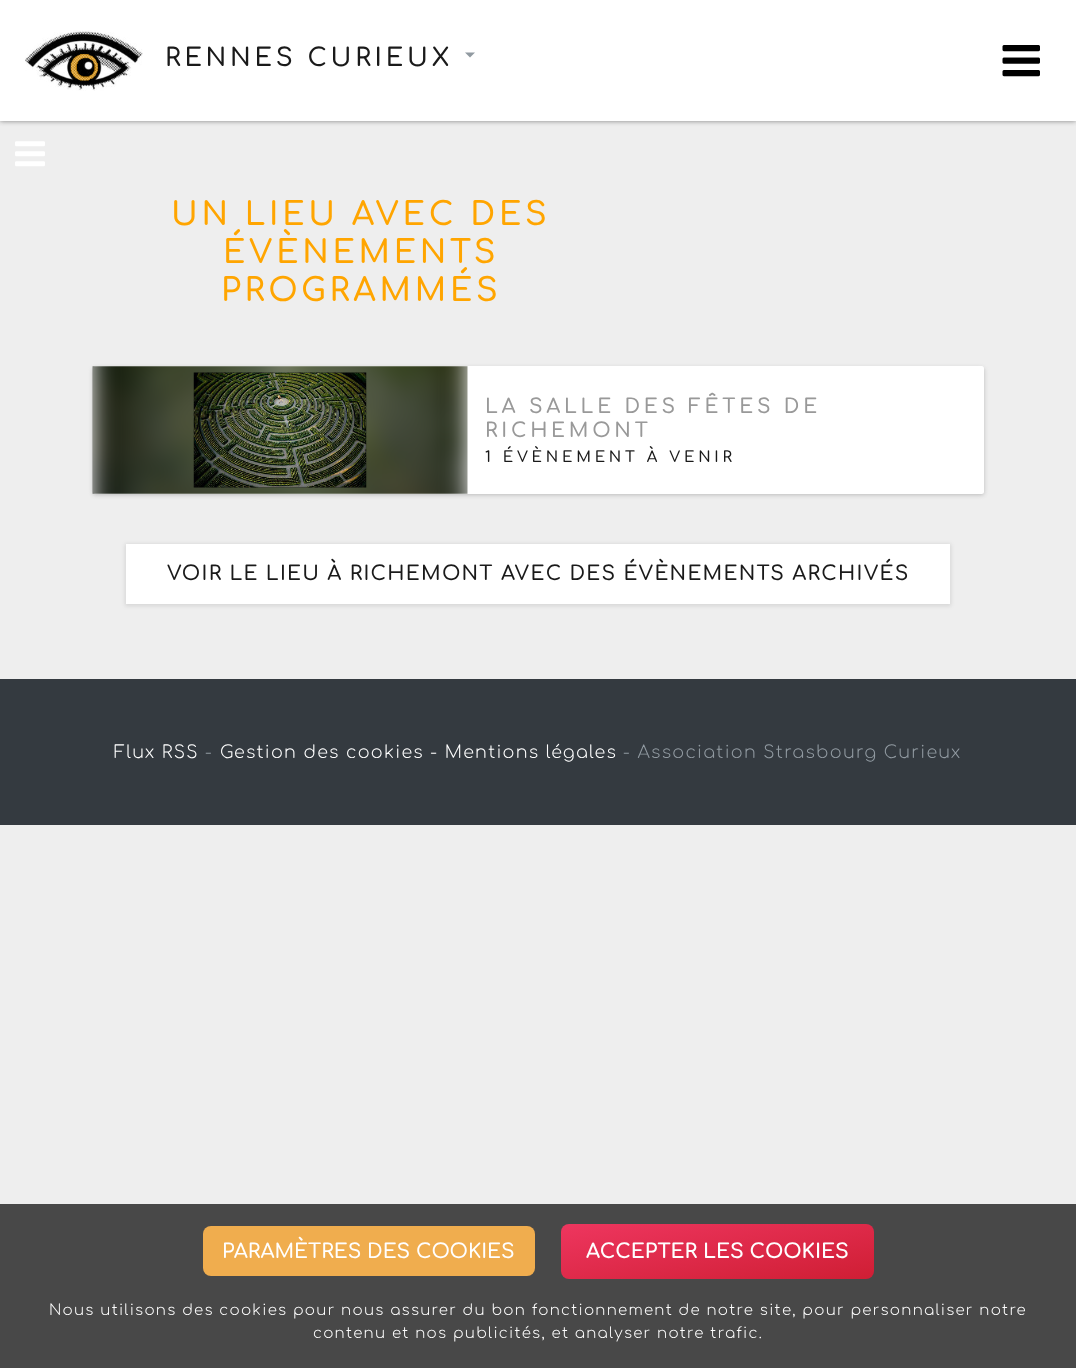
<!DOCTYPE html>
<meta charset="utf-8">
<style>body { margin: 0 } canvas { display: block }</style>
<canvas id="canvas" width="1076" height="1368"></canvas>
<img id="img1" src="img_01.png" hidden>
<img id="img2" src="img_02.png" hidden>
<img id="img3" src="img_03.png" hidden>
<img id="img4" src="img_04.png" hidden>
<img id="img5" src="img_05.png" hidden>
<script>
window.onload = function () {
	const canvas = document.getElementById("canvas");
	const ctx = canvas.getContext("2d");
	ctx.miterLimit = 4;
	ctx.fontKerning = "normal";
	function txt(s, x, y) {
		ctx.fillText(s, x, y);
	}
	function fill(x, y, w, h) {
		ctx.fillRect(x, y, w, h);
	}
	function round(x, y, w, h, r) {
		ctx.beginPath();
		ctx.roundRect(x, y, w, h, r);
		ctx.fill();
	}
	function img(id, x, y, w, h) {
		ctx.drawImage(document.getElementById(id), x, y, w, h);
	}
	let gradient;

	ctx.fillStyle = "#EEEEEE";
	fill(0, 0, 1076, 1368);
	ctx.fillStyle = "#808080";
	ctx.filter = "blur(2.5px)";
	ctx.beginPath();
	ctx.rect(0, 0, 1076, 121);
	ctx.fill();
	ctx.filter = "none";
	ctx.fillStyle = "#FFFFFF";
	fill(0, 0, 1076, 121);
	img("img1", 25, 30, 118, 61);
	ctx.fillStyle = "#919AA1";
	ctx.beginPath();
	ctx.moveTo(465, 52.5);
	ctx.lineTo(475, 52.5);
	ctx.lineTo(470, 57.5);
	ctx.closePath();
	ctx.fill();
	img("img2", 1002, 45, 38, 32);
	img("img3", 15, 141, 30, 26);
	ctx.fillStyle = "#BBBBBB";
	ctx.filter = "blur(2px)";
	ctx.beginPath();
	ctx.roundRect(93, 368, 891, 127, 2.5);
	ctx.fill();
	ctx.filter = "none";
	ctx.fillStyle = "#FFFFFF";
	round(93, 366, 891, 128, 2.5);
	img("img4", 92, 366, 376, 128);
	img("img5", 193, 372, 174, 116);
	ctx.fillStyle = "rgba(0, 0, 0, 0.1)";
	ctx.filter = "blur(2px)";
	ctx.beginPath();
	ctx.rect(125, 544, 826, 62);
	ctx.fill();
	ctx.filter = "none";
	ctx.fillStyle = "#FFFFFF";
	fill(126, 544, 824, 60);
	ctx.fillStyle = "#343A40";
	fill(0, 679, 1076, 146);
	ctx.fillStyle = "#484848";
	fill(0, 1204, 1076, 164);
	ctx.fillStyle = "#F0AD4E";
	round(203, 1226, 332, 50, 8);
	gradient = ctx.createLinearGradient(728, 1307, 707, 1196);
	gradient.addColorStop(0, "#CF1E34");
	gradient.addColorStop(1, "#EE365F");
	ctx.fillStyle = gradient;
	round(561, 1224, 313, 55, 8);
	ctx.letterSpacing = "3.75px";
	ctx.font = "600 25px Comfortaa";
	ctx.fillStyle = "#1A1A1A";
	txt("RENNES CURIEUX", 165, 66);
	ctx.font = "600 32px Comfortaa";
	ctx.fillStyle = "#FFA500";
	txt("UN LIEU AVEC DES", 171, 225);
	txt("ÉVÈNEMENTS", 223, 263);
	txt("PROGRAMMÉS", 221, 301);
	ctx.font = "600 20px Comfortaa";
	ctx.fillStyle = "#999999";
	txt("LA SALLE DES FÊTES DE", 485, 413);
	txt("RICHEMONT", 485, 437);
	ctx.font = "600 15px Comfortaa";
	ctx.fillStyle = "#1A1A1A";
	txt("1 ÉVÈNEMENT À VENIR", 485, 462);
	ctx.letterSpacing = "1.25px";
	ctx.font = "600 20px Comfortaa";
	txt("VOIR LE LIEU À RICHEMONT AVEC DES ÉVÈNEMENTS ARCHIVÉS", 167, 580);
	ctx.font = "300 17.5px Comfortaa";
	ctx.fillStyle = "#FFFFFF";
	txt("Flux RSS", 114, 758);
	ctx.fillStyle = "#919AA1";
	txt("-", 205, 758);
	ctx.fillStyle = "#FFFFFF";
	txt("Gestion des cookies - Mentions légales", 220, 758);
	ctx.fillStyle = "#919AA1";
	txt("- Association Strasbourg Curieux", 623, 758);
	ctx.letterSpacing = "0px";
	ctx.font = "600 20px Comfortaa";
	ctx.fillStyle = "#FFFFFF";
	txt("PARAMÈTRES DES COOKIES", 222, 1258);
	ctx.font = "bold 20px Comfortaa";
	txt("ACCEPTER LES COOKIES", 586, 1258);
	ctx.letterSpacing = "1.25px";
	ctx.font = "300 15px Comfortaa";
	txt("Nous utilisons des cookies pour nous assurer du bon fonctionnement de notre site, pour personnaliser notre", 49, 1315);
	txt("contenu et nos publicités, et analyser notre trafic.", 313, 1338);
};
</script>
